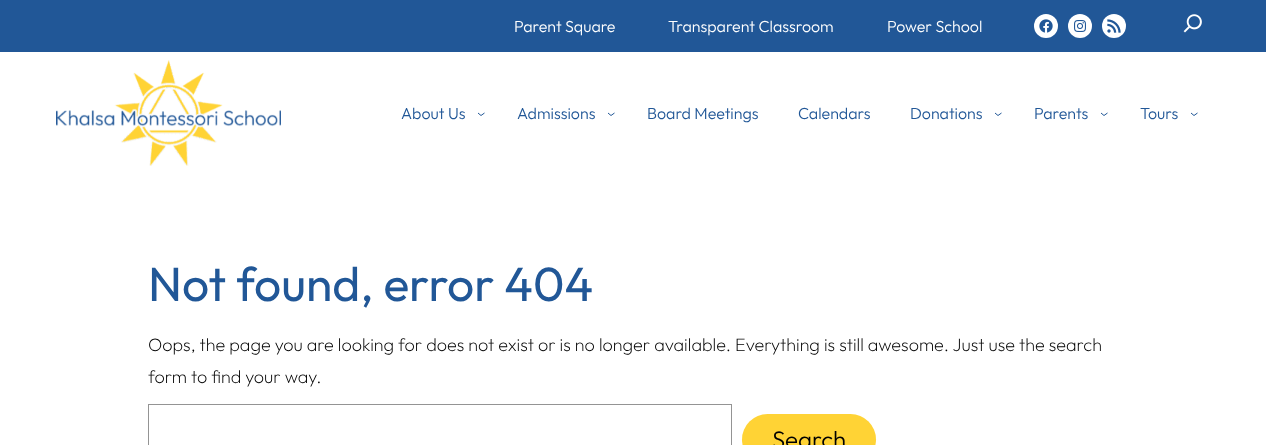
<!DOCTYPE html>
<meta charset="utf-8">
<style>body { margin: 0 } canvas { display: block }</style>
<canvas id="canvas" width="1266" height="445"></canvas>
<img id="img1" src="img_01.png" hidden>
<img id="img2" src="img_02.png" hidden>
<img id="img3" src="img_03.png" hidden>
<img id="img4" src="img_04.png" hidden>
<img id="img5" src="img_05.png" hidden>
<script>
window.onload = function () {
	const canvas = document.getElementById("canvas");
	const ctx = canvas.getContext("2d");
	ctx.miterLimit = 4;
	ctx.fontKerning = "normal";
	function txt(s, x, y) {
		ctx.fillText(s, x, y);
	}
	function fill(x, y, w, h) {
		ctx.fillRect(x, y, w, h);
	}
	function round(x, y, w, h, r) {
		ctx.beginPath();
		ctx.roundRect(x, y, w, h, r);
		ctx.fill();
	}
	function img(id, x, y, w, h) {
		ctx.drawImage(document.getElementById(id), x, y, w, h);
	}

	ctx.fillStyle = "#FFFFFF";
	fill(0, 0, 1266, 445);
	ctx.fillStyle = "#215797";
	fill(0, 0, 1266, 52);
	ctx.fillStyle = "#FFFFFF";
	ctx.beginPath();
	ctx.arc(1046, 26, 12, 0, Math.PI * 2);
	ctx.fill();
	img("img1", 1039, 19, 14, 14);
	ctx.beginPath();
	ctx.arc(1080, 26, 12, 0, Math.PI * 2);
	ctx.fill();
	img("img2", 1074, 20, 12, 12);
	ctx.beginPath();
	ctx.arc(1114, 26, 12, 0, Math.PI * 2);
	ctx.fill();
	img("img3", 1107, 19, 14, 14);
	img("img4", 1183, 14, 19, 19);
	img("img5", 56, 60, 225, 106);
	ctx.beginPath();
	ctx.moveTo(478, 113);
	ctx.lineTo(481, 115.5);
	ctx.lineTo(484.5, 113);
	ctx.strokeStyle = "#215797";
	ctx.stroke();
	ctx.beginPath();
	ctx.moveTo(608, 113);
	ctx.lineTo(611, 115.5);
	ctx.lineTo(614.5, 113);
	ctx.stroke();
	ctx.beginPath();
	ctx.moveTo(995, 113);
	ctx.lineTo(998, 115.5);
	ctx.lineTo(1001.5, 113);
	ctx.stroke();
	ctx.beginPath();
	ctx.moveTo(1101, 113);
	ctx.lineTo(1104, 115.5);
	ctx.lineTo(1107.5, 113);
	ctx.stroke();
	ctx.beginPath();
	ctx.moveTo(1191, 113);
	ctx.lineTo(1194, 115.5);
	ctx.lineTo(1197.5, 113);
	ctx.stroke();
	ctx.strokeStyle = "#949494";
	ctx.strokeRect(148.5, 404.5, 583, 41);
	ctx.fillStyle = "#FFD335";
	round(742, 414, 134, 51, 25.5);
	ctx.font = "300 16px Outfit";
	ctx.fillStyle = "#FFFFFF";
	txt("Parent Square", 514, 32);
	txt("Transparent Classroom", 668, 32);
	txt("Power School", 887, 32);
	ctx.fillStyle = "#215797";
	txt("About Us", 401, 119);
	txt("Admissions", 517, 119);
	txt("Board Meetings", 647, 119);
	txt("Calendars", 798, 119);
	txt("Donations", 910, 119);
	txt("Parents", 1034, 119);
	txt("Tours", 1140, 119);
	ctx.font = "48px Outfit";
	txt("Not found, error 404", 148, 301);
	ctx.font = "200 18px Outfit";
	ctx.fillStyle = "#000000";
	txt("Oops, the page you are looking for does not exist or is no longer available. Everything is still awesome. Just use the search", 148, 351);
	txt("form to find your way.", 148, 383);
	ctx.font = "300 24px Outfit";
	txt("Search", 772, 448);
};
</script>
